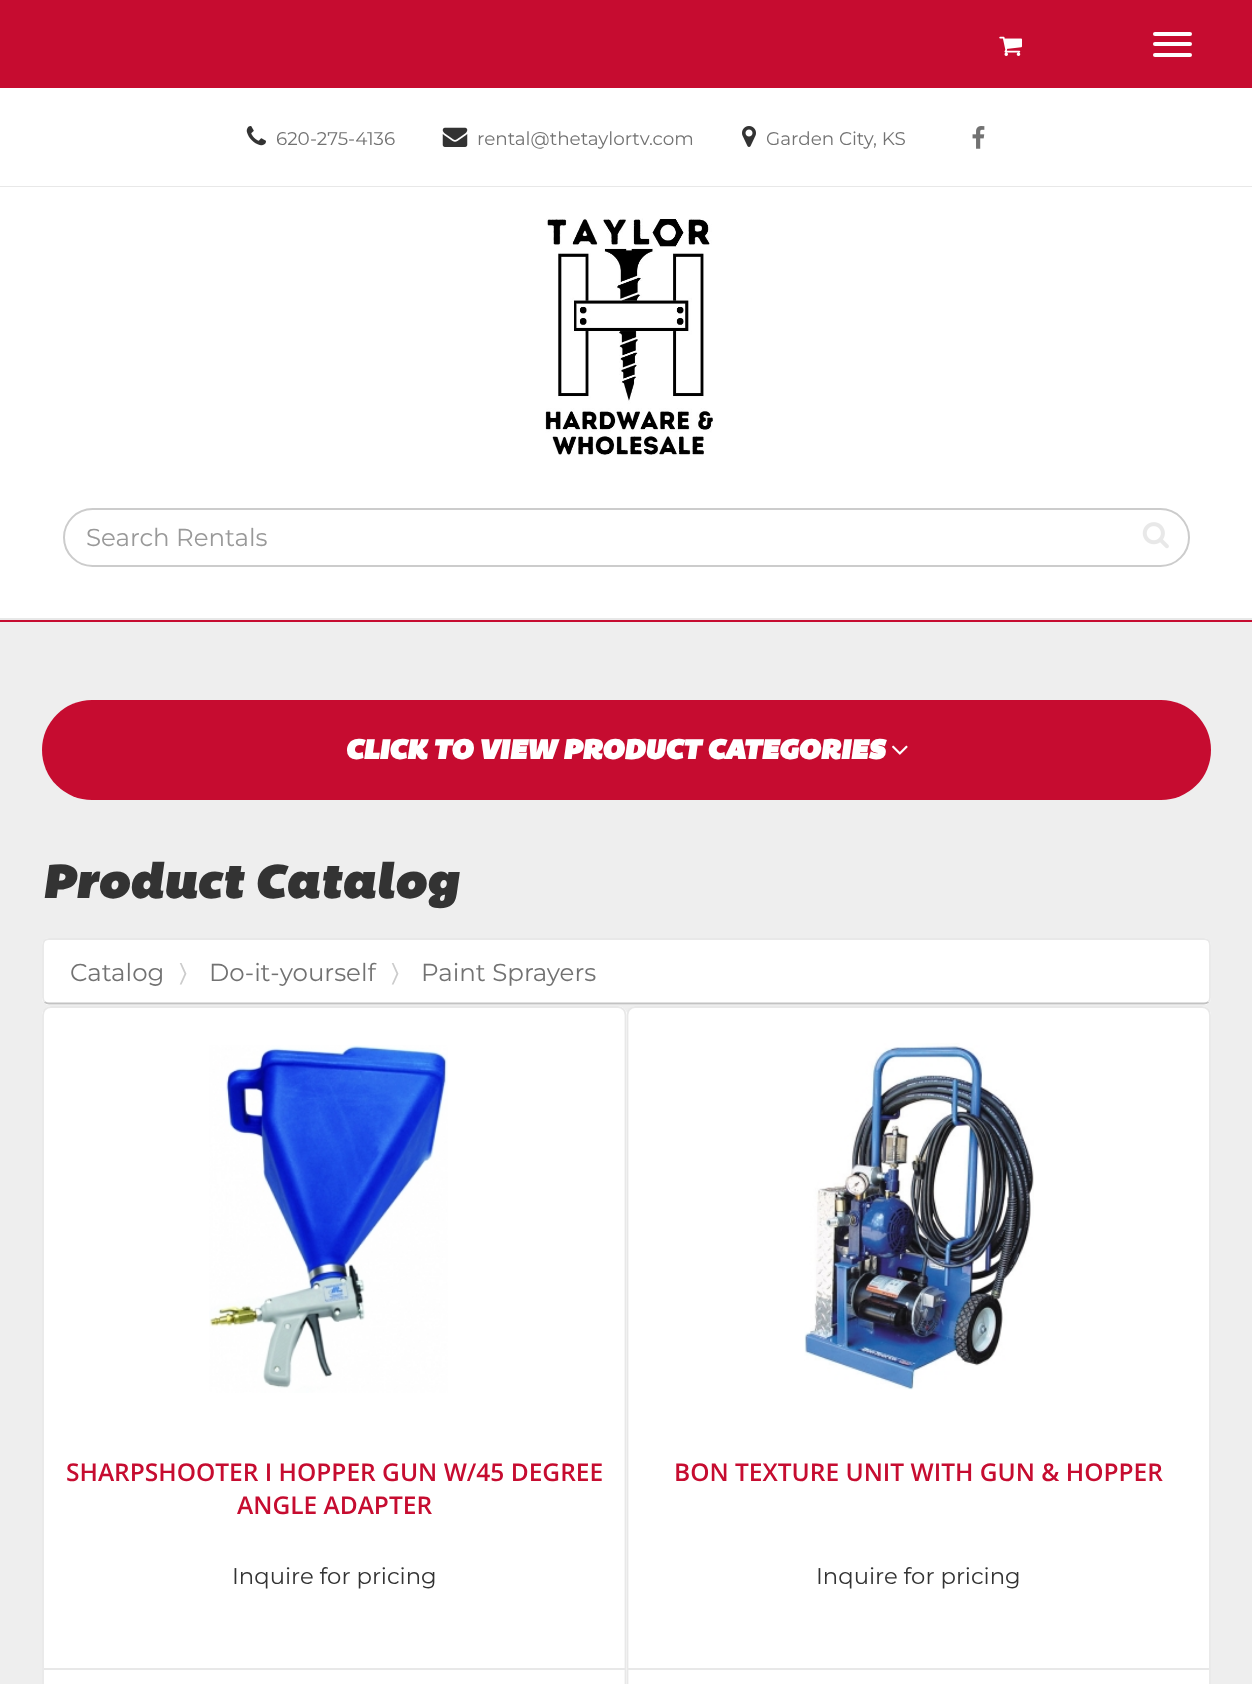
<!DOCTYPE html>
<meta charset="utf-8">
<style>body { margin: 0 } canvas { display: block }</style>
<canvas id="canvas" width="1252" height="1684"></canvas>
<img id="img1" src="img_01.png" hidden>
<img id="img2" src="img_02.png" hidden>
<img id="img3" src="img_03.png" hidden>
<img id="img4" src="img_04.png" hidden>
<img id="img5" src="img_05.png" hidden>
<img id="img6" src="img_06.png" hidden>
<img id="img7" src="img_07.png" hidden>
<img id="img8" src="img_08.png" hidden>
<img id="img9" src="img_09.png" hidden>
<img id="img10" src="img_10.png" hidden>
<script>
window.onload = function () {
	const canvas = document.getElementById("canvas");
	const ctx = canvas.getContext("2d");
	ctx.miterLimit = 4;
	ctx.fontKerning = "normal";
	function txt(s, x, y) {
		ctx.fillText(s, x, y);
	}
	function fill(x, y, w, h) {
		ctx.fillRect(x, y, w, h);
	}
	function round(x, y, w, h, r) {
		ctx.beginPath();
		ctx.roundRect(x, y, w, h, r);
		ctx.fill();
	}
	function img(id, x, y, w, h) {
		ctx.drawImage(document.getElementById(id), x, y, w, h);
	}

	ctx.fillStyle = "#EEEEEE";
	fill(0, 0, 1252, 1684);
	ctx.fillStyle = "#C60C30";
	fill(0, 620, 1252, 2);
	fill(0, 0, 1252, 88);
	ctx.fillStyle = "#FFFFFF";
	round(1153, 32, 39, 4, 2);
	round(1153, 42, 39, 4, 2);
	round(1153, 53, 39, 4, 2);
	fill(0, 88, 1252, 98);
	ctx.fillStyle = "#E8E8E8";
	fill(0, 186, 1252, 1);
	img("img1", 246, 126, 20, 20);
	img("img2", 442, 127, 26, 20);
	img("img3", 742, 126, 14, 21);
	img("img4", 972, 126, 13, 23);
	ctx.fillStyle = "#FFFFFF";
	fill(0, 187, 1252, 431);
	ctx.fillStyle = "#E8E8E8";
	fill(0, 618, 1252, 2);
	img("img5", 545, 218, 168, 238);
	img("img6", 999, 36, 23, 20);
	ctx.beginPath();
	ctx.roundRect(64, 509, 1125, 57, 28.5);
	ctx.strokeStyle = "#CCCCCC";
	ctx.lineWidth = 2;
	ctx.stroke();
	img("img7", 1142, 522, 27, 27);
	ctx.fillStyle = "#C60C30";
	round(42, 700, 1169, 100, 50);
	img("img8", 892, 745, 16, 10);
	ctx.fillStyle = "#FFFFFF";
	round(42, 938, 1169, 67, 7);
	ctx.beginPath();
	ctx.moveTo(1208.5, 1002);
	ctx.bezierCurveTo(1207, 1003, 1205.5, 1003.5, 1204, 1003.5);
	ctx.lineTo(49, 1003.5);
	ctx.bezierCurveTo(47.5, 1003.5, 46, 1003, 44.5, 1002);
	ctx.strokeStyle = "#C2C2C2";
	ctx.lineWidth = 1.8;
	ctx.stroke();
	ctx.beginPath();
	ctx.moveTo(44.5, 1002);
	ctx.bezierCurveTo(43.5, 1000.5, 43, 999, 43, 997.5);
	ctx.lineTo(43, 945);
	ctx.bezierCurveTo(43, 943.5, 43.5, 942, 44.5, 940.5);
	ctx.bezierCurveTo(46, 939.5, 47.5, 939, 49, 939);
	ctx.lineTo(1204, 939);
	ctx.bezierCurveTo(1205.5, 939, 1207, 939.5, 1208.5, 940.5);
	ctx.bezierCurveTo(1209.5, 942, 1210, 943.5, 1210, 945);
	ctx.lineTo(1210, 997.5);
	ctx.bezierCurveTo(1210, 999, 1209.5, 1000.5, 1208.5, 1002);
	ctx.strokeStyle = "#E8E8E8";
	ctx.stroke();
	round(42, 1006, 585, 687, 9);
	ctx.beginPath();
	ctx.moveTo(45, 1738);
	ctx.bezierCurveTo(43.5, 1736.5, 43, 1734.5, 43, 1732.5);
	ctx.lineTo(43, 1015);
	ctx.bezierCurveTo(43, 1013, 43.5, 1011, 45, 1009.5);
	ctx.bezierCurveTo(46.5, 1008, 48.5, 1007, 51, 1007);
	ctx.lineTo(618, 1007);
	ctx.bezierCurveTo(620, 1007, 622, 1008, 623.5, 1009.5);
	ctx.bezierCurveTo(625, 1011, 625.5, 1013, 625.5, 1015);
	ctx.lineTo(625.5, 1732.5);
	ctx.bezierCurveTo(625.5, 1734.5, 625, 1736.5, 623.5, 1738);
	ctx.stroke();
	img("img9", 209, 1045, 239, 348);
	ctx.fillStyle = "#E8E8E8";
	fill(44, 1668, 581, 2);
	ctx.fillStyle = "#FFFFFF";
	round(627, 1006, 584, 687, 9);
	ctx.beginPath();
	ctx.moveTo(629.5, 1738);
	ctx.bezierCurveTo(628, 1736.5, 627.5, 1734.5, 627.5, 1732.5);
	ctx.lineTo(627.5, 1015);
	ctx.bezierCurveTo(627.5, 1013, 628, 1011, 629.5, 1009.5);
	ctx.bezierCurveTo(631, 1008, 633, 1007, 635, 1007);
	ctx.lineTo(1202, 1007);
	ctx.bezierCurveTo(1204.5, 1007, 1206.5, 1008, 1208, 1009.5);
	ctx.bezierCurveTo(1209.5, 1011, 1210, 1013, 1210, 1015);
	ctx.lineTo(1210, 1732.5);
	ctx.bezierCurveTo(1210, 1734.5, 1209.5, 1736.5, 1208, 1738);
	ctx.stroke();
	img("img10", 804, 1043, 230, 347);
	ctx.fillStyle = "#E8E8E8";
	fill(628, 1668, 581, 2);
	ctx.font = "18.4px Montserrat";
	ctx.fillStyle = "#727272";
	txt("620-275-4136", 276, 145);
	txt("rental@thetaylortv.com", 477, 145);
	txt("Garden City, KS", 766, 145);
	ctx.font = "24.5px Montserrat";
	ctx.fillStyle = "#999999";
	txt("Search Rentals", 86, 546);
	ctx.font = "italic bold 28.2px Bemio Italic";
	ctx.fillStyle = "#FFFFFF";
	txt("CLICK TO VIEW PRODUCT CATEGORIES", 345, 759);
	ctx.font = "italic 49px Bemio Italic";
	ctx.fillStyle = "#333333";
	txt("Product Catalog", 42, 898);
	ctx.font = "24.5px Montserrat";
	ctx.fillStyle = "#727272";
	txt("Catalog", 70, 981);
	ctx.font = "24.5px FreeSans";
	ctx.fillStyle = "#CCCCCC";
	txt("〉", 179, 981);
	ctx.font = "24.5px Montserrat";
	ctx.fillStyle = "#727272";
	txt("Do-it-yourself", 209, 981);
	ctx.font = "24.5px FreeSans";
	ctx.fillStyle = "#CCCCCC";
	txt("〉", 391, 981);
	ctx.font = "24.5px Montserrat";
	ctx.fillStyle = "#727272";
	txt("Paint Sprayers", 421, 981);
	ctx.font = "600 24.5px Open Sans";
	ctx.fillStyle = "#C60C30";
	txt("SHARPSHOOTER I HOPPER GUN W/45 DEGREE", 66, 1481);
	txt("ANGLE ADAPTER", 237, 1514);
	ctx.font = "22.75px Montserrat";
	ctx.fillStyle = "#333333";
	txt("Inquire for pricing", 232, 1584);
	ctx.font = "600 24.5px Open Sans";
	ctx.fillStyle = "#C60C30";
	txt("BON TEXTURE UNIT WITH GUN & HOPPER", 674, 1481);
	ctx.font = "22.75px Montserrat";
	ctx.fillStyle = "#333333";
	txt("Inquire for pricing", 816, 1584);
};
</script>
